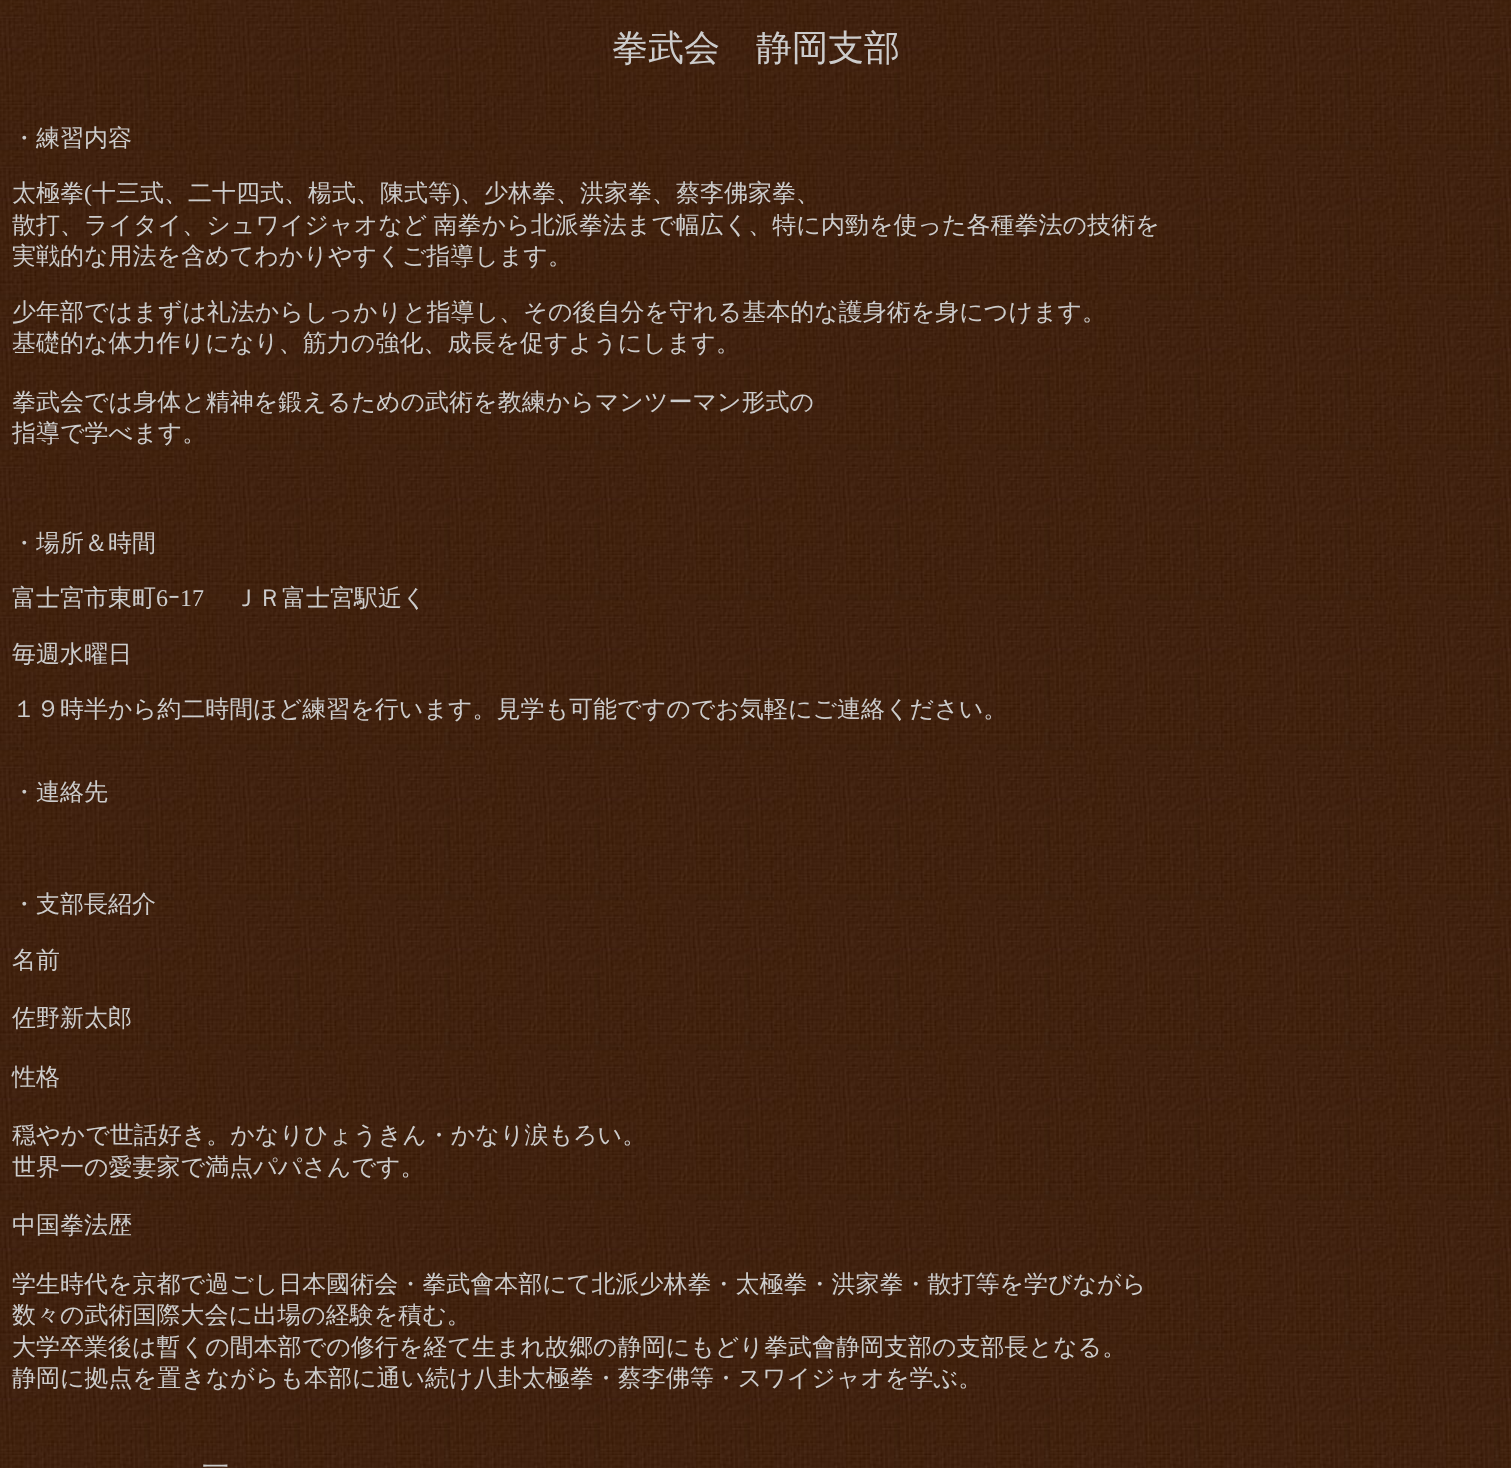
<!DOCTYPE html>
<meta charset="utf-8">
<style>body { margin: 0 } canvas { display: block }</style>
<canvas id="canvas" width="1511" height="1468"></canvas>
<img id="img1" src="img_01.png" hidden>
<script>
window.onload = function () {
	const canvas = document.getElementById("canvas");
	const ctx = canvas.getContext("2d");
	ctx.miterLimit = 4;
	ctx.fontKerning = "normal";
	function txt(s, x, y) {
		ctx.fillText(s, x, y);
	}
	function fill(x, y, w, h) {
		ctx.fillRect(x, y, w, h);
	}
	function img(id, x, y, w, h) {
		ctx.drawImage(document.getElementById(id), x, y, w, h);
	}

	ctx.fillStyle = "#FFFFFF";
	fill(0, 0, 1511, 1468);
	img("img1", 0, 0, 1511, 1468);
	ctx.font = "500 36px WenQuanYi Zen Hei";
	ctx.fillStyle = "#CCCCCC";
	txt("拳武会　静岡支部", 612, 60);
	ctx.font = "500 24px WenQuanYi Zen Hei";
	txt("・練習内容", 12, 146);
	txt("太極拳", 12, 201);
	ctx.font = "24px Liberation Serif";
	txt("(", 84, 201);
	ctx.font = "500 24px WenQuanYi Zen Hei";
	txt("十三式、二十四式、楊式、陳式等", 92, 201);
	ctx.font = "24px Liberation Serif";
	txt(")", 452, 201);
	ctx.font = "500 24px WenQuanYi Zen Hei";
	txt("、少林拳、洪家拳、蔡李佛家拳、", 460, 201);
	ctx.wordSpacing = "-1px";
	txt("散打、ライタイ、シュワイジャオなど 南拳から北派拳法まで幅広く、特に内勁を使った各種拳法の技術を", 12, 233);
	ctx.wordSpacing = "0px";
	txt("実戦的な用法を含めてわかりやすくご指導します。", 12, 264);
	txt("少年部ではまずは礼法からしっかりと指導し、その後自分を守れる基本的な護身術を身につけます。", 12, 320);
	txt("基礎的な体力作りになり、筋力の強化、成長を促すようにします。", 12, 351);
	txt("拳武会では身体と精神を鍛えるための武術を教練からマンツーマン形式の", 12, 410);
	txt("指導で学べます。", 12, 441);
	txt("・場所＆時間", 12, 551);
	txt("富士宮市東町", 12, 606);
	ctx.font = "24px Liberation Serif";
	txt("6", 156, 606);
	ctx.font = "24px IPAPGothic";
	txt("ｰ", 168, 606);
	ctx.font = "24px Liberation Serif";
	txt("17", 180, 606);
	ctx.font = "500 24px WenQuanYi Zen Hei";
	txt("ＪＲ富士宮駅近く", 234, 606);
	txt("毎週水曜日", 12, 662);
	txt("１９時半から約二時間ほど練習を行います。見学も可能ですのでお気軽にご連絡ください。", 12, 717);
	txt("・連絡先", 12, 800);
	txt("・支部長紹介", 12, 912);
	txt("名前", 12, 968);
	txt("佐野新太郎", 12, 1026);
	txt("性格", 12, 1085);
	txt("穏やかで世話好き。かなりひょうきん・かなり涙もろい。", 12, 1143);
	txt("世界一の愛妻家で満点パパさんです。", 12, 1175);
	txt("中国拳法歴", 12, 1233);
	txt("学生時代を京都で過ごし日本國術会・拳武會本部にて北派少林拳・太極拳・洪家拳・散打等を学びながら", 12, 1292);
	txt("数々の武術国際大会に出場の経験を積む。", 12, 1323);
	txt("大学卒業後は暫くの間本部での修行を経て生まれ故郷の静岡にもどり拳武會静岡支部の支部長となる。", 12, 1355);
	txt("静岡に拠点を置きながらも本部に通い続け八卦太極拳・蔡李佛等・スワイジャオを学ぶ。", 12, 1386);
	ctx.font = "500 27px WenQuanYi Zen Hei";
	txt("一", 202, 1476);
};
</script>
